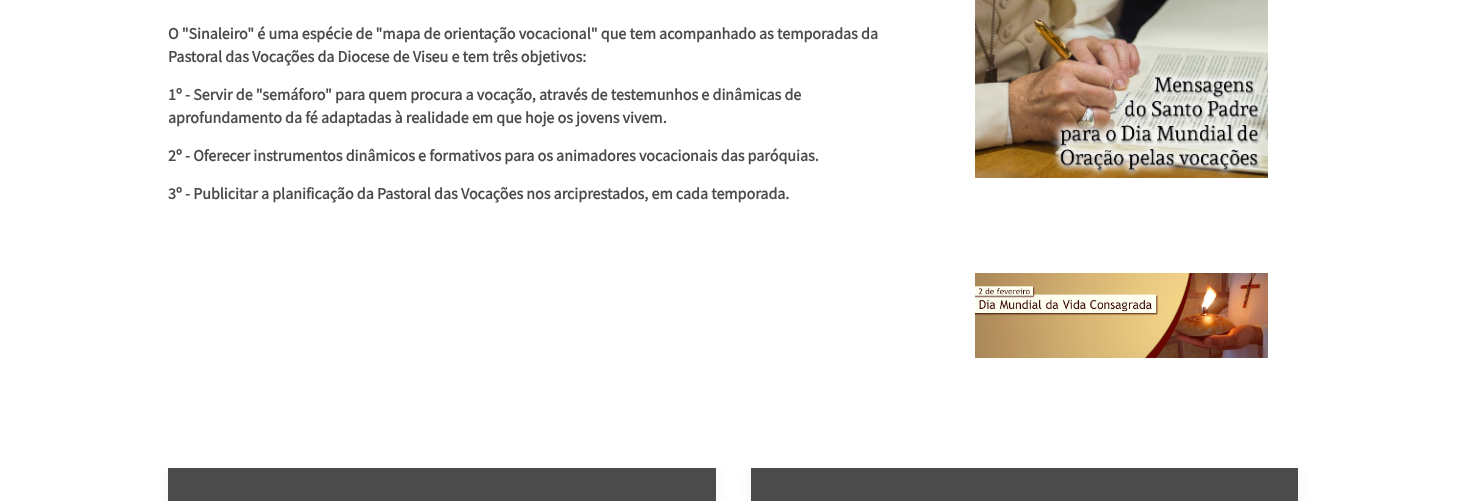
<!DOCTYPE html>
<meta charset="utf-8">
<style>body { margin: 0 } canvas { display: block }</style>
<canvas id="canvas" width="1466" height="501"></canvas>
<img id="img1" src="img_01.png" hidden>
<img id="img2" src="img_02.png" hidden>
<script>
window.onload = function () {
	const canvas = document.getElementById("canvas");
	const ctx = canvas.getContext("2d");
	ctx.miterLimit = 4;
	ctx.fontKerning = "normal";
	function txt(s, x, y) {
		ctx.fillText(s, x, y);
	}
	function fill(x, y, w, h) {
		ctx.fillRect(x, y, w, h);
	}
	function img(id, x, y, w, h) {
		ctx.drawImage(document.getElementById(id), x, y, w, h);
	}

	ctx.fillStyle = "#FFFFFF";
	fill(0, 0, 1466, 501);
	img("img1", 975, 0, 293, 178);
	img("img2", 975, 273, 293, 85);
	ctx.fillStyle = "rgba(0, 0, 0, 0.04)";
	ctx.filter = "blur(6px)";
	ctx.beginPath();
	ctx.rect(166, 470, 552, 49);
	ctx.fill();
	ctx.filter = "none";
	ctx.fillStyle = "#4B4B4B";
	fill(168, 468, 548, 33);
	ctx.fillStyle = "rgba(0, 0, 0, 0.04)";
	ctx.filter = "blur(6px)";
	ctx.beginPath();
	ctx.rect(749, 470, 551, 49);
	ctx.fill();
	ctx.filter = "none";
	ctx.fillStyle = "#4B4B4B";
	fill(751, 468, 547, 33);
	ctx.font = "bold 16px Source Sans Pro";
	txt("O \"Sinaleiro\" é uma espécie de \"mapa de orientação vocacional\" que tem acompanhado as temporadas da", 168, 39);
	txt("Pastoral das Vocações da Diocese de Viseu e tem três objetivos:", 168, 62);
	txt("1º - Servir de \"semáforo\" para quem procura a vocação, através de testemunhos e dinâmicas de", 168, 100);
	txt("aprofundamento da fé adaptadas à realidade em que hoje os jovens vivem.", 168, 123);
	txt("2º - Oferecer instrumentos dinâmicos e formativos para os animadores vocacionais das paróquias.", 168, 161);
	txt("3º - Publicitar a planificação da Pastoral das Vocações nos arciprestados, em cada temporada.", 168, 199);
};
</script>
